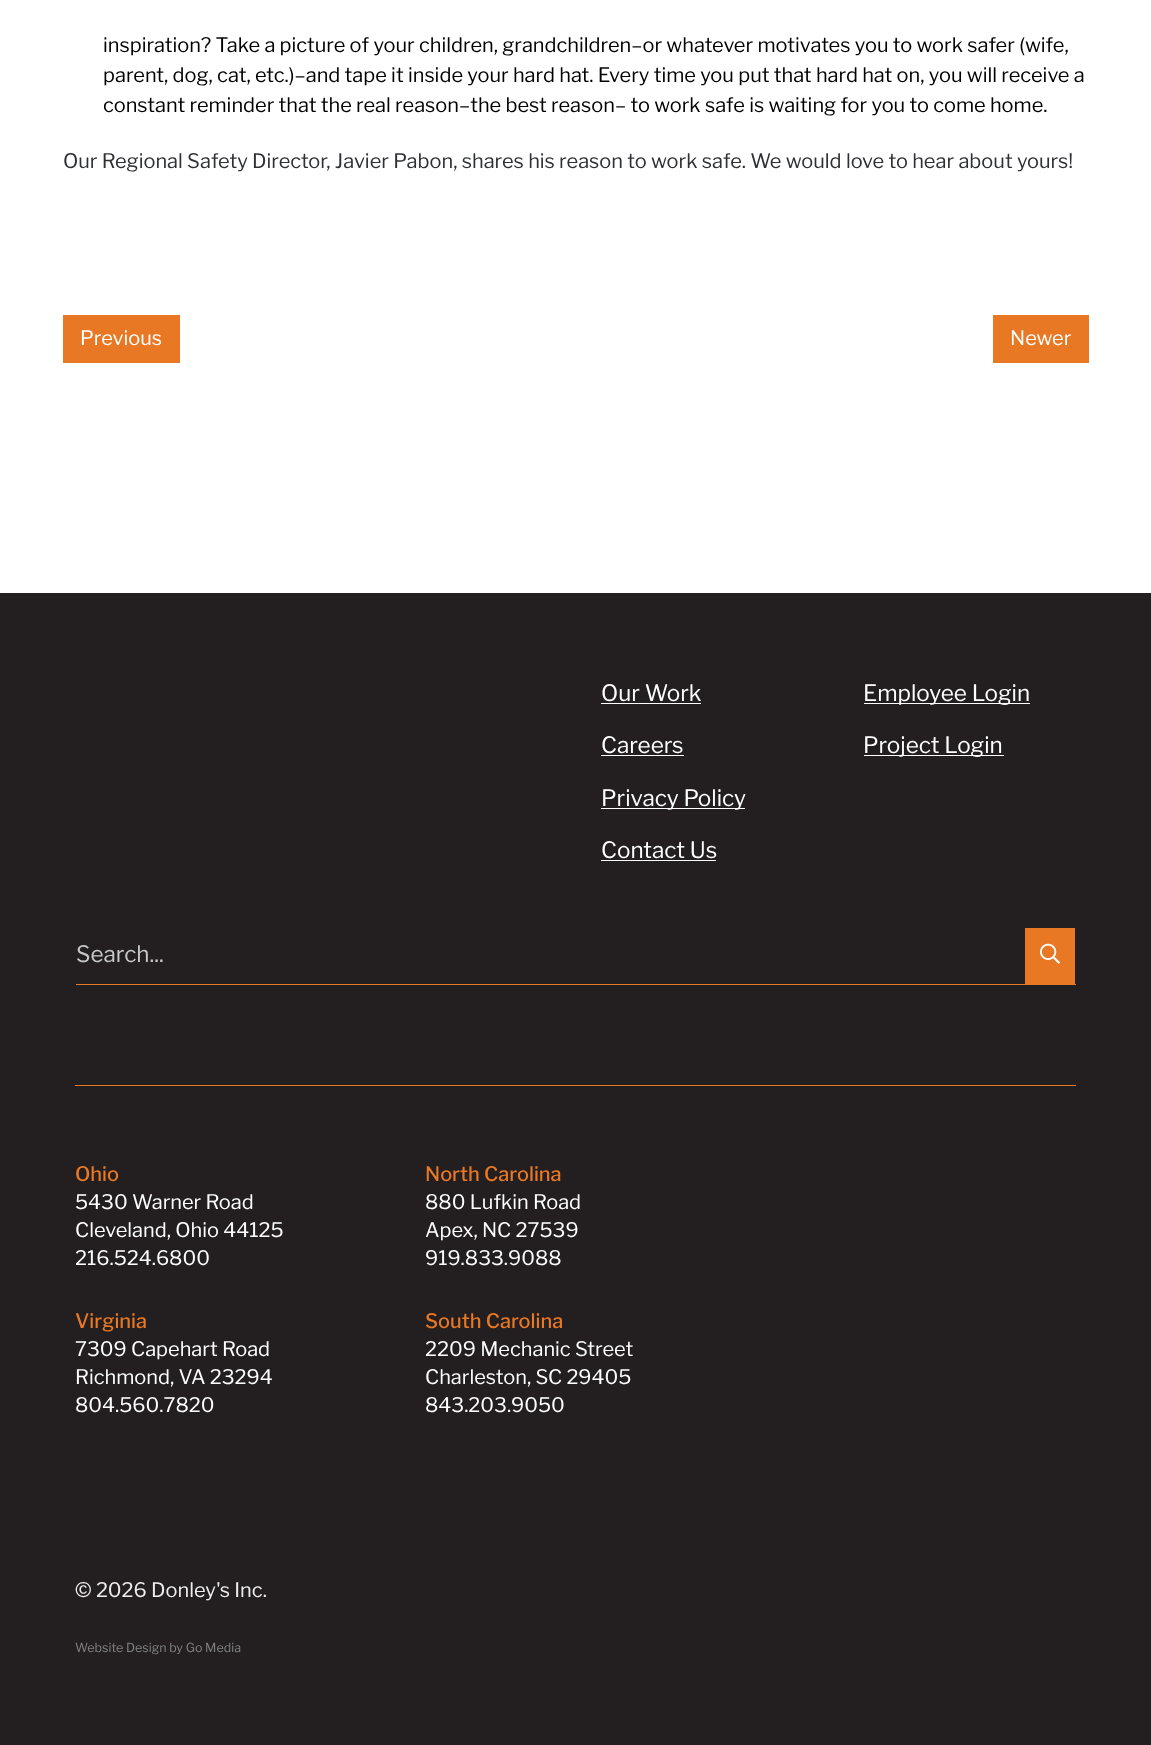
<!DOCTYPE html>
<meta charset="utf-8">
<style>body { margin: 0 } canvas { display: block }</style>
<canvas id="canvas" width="1151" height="1745"></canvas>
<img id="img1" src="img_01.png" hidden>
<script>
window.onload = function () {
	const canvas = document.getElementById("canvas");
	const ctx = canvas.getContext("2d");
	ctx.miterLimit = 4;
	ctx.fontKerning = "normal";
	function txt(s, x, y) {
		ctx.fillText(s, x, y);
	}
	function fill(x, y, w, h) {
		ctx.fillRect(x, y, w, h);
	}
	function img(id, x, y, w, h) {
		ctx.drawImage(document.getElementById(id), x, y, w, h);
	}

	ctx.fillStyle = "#FFFFFF";
	fill(0, 0, 1151, 1745);
	ctx.fillStyle = "#E87824";
	fill(63, 315, 117, 48);
	fill(993, 315, 96, 48);
	ctx.fillStyle = "#231F20";
	fill(0, 593, 1151, 1152);
	ctx.fillStyle = "#FFFFFF";
	fill(601, 703, 100, 1);
	fill(601, 755, 83, 1);
	fill(601, 808, 144, 1);
	fill(601, 860, 115, 1);
	fill(864, 703, 166, 1);
	fill(864, 755, 140, 1);
	ctx.fillStyle = "#E87824";
	fill(75, 984, 1001, 1);
	ctx.fillStyle = "#231F20";
	fill(75, 984, 1, 1);
	ctx.fillStyle = "#E87824";
	fill(1025, 928, 50, 56);
	img("img1", 1040, 943, 20, 21);
	fill(75, 1085, 1001, 1);
	ctx.font = "20px Libre Franklin";
	ctx.fillStyle = "#000000";
	txt("inspiration? Take a picture of your children, grandchildren–or whatever motivates you to work safer (wife,", 103, 52);
	txt("parent, dog, cat, etc.)–and tape it inside your hard hat. Every time you put that hard hat on, you will receive a", 103, 82);
	txt("constant reminder that the real reason–the best reason– to work safe is waiting for you to come home.", 103, 112);
	ctx.fillStyle = "#2F3033";
	txt("Our Regional Safety Director, Javier Pabon, shares his reason to work safe. We would love to hear about yours!", 63, 168);
	ctx.fillStyle = "#FFFFFF";
	txt("Previous", 80, 345);
	txt("Newer", 1010, 345);
	ctx.font = "22.5px Libre Franklin";
	txt("Our Work", 601, 701);
	txt("Careers", 601, 753);
	txt("Privacy Policy", 601, 806);
	txt("Contact Us", 601, 858);
	txt("Employee Login", 863, 701);
	txt("Project Login", 863, 753);
	ctx.fillStyle = "#C8C8C8";
	txt("Search...", 76, 962);
	ctx.font = "500 20px Libre Franklin";
	ctx.fillStyle = "#E87824";
	txt("Ohio", 75, 1181);
	ctx.font = "20px Libre Franklin";
	ctx.fillStyle = "#FFFFFF";
	txt("5430 Warner Road", 75, 1209);
	txt("Cleveland, Ohio 44125", 75, 1237);
	txt("216.524.6800", 75, 1265);
	ctx.font = "500 20px Libre Franklin";
	ctx.fillStyle = "#E87824";
	txt("Virginia", 75, 1328);
	ctx.font = "20px Libre Franklin";
	ctx.fillStyle = "#FFFFFF";
	txt("7309 Capehart Road", 75, 1356);
	txt("Richmond, VA 23294", 75, 1384);
	txt("804.560.7820", 75, 1412);
	ctx.font = "500 20px Libre Franklin";
	ctx.fillStyle = "#E87824";
	txt("North Carolina", 425, 1181);
	ctx.font = "20px Libre Franklin";
	ctx.fillStyle = "#FFFFFF";
	txt("880 Lufkin Road", 425, 1209);
	txt("Apex, NC 27539", 425, 1237);
	txt("919.833.9088", 425, 1265);
	ctx.font = "500 20px Libre Franklin";
	ctx.fillStyle = "#E87824";
	txt("South Carolina", 425, 1328);
	ctx.font = "20px Libre Franklin";
	ctx.fillStyle = "#FFFFFF";
	txt("2209 Mechanic Street", 425, 1356);
	txt("Charleston, SC 29405", 425, 1384);
	txt("843.203.9050", 425, 1412);
	ctx.fillStyle = "#EEEEEE";
	txt("© 2026 Donley's Inc.", 75, 1597);
	ctx.font = "12.5px Libre Franklin";
	ctx.fillStyle = "#808080";
	txt("Website Design by Go Media", 75, 1652);
};
</script>
